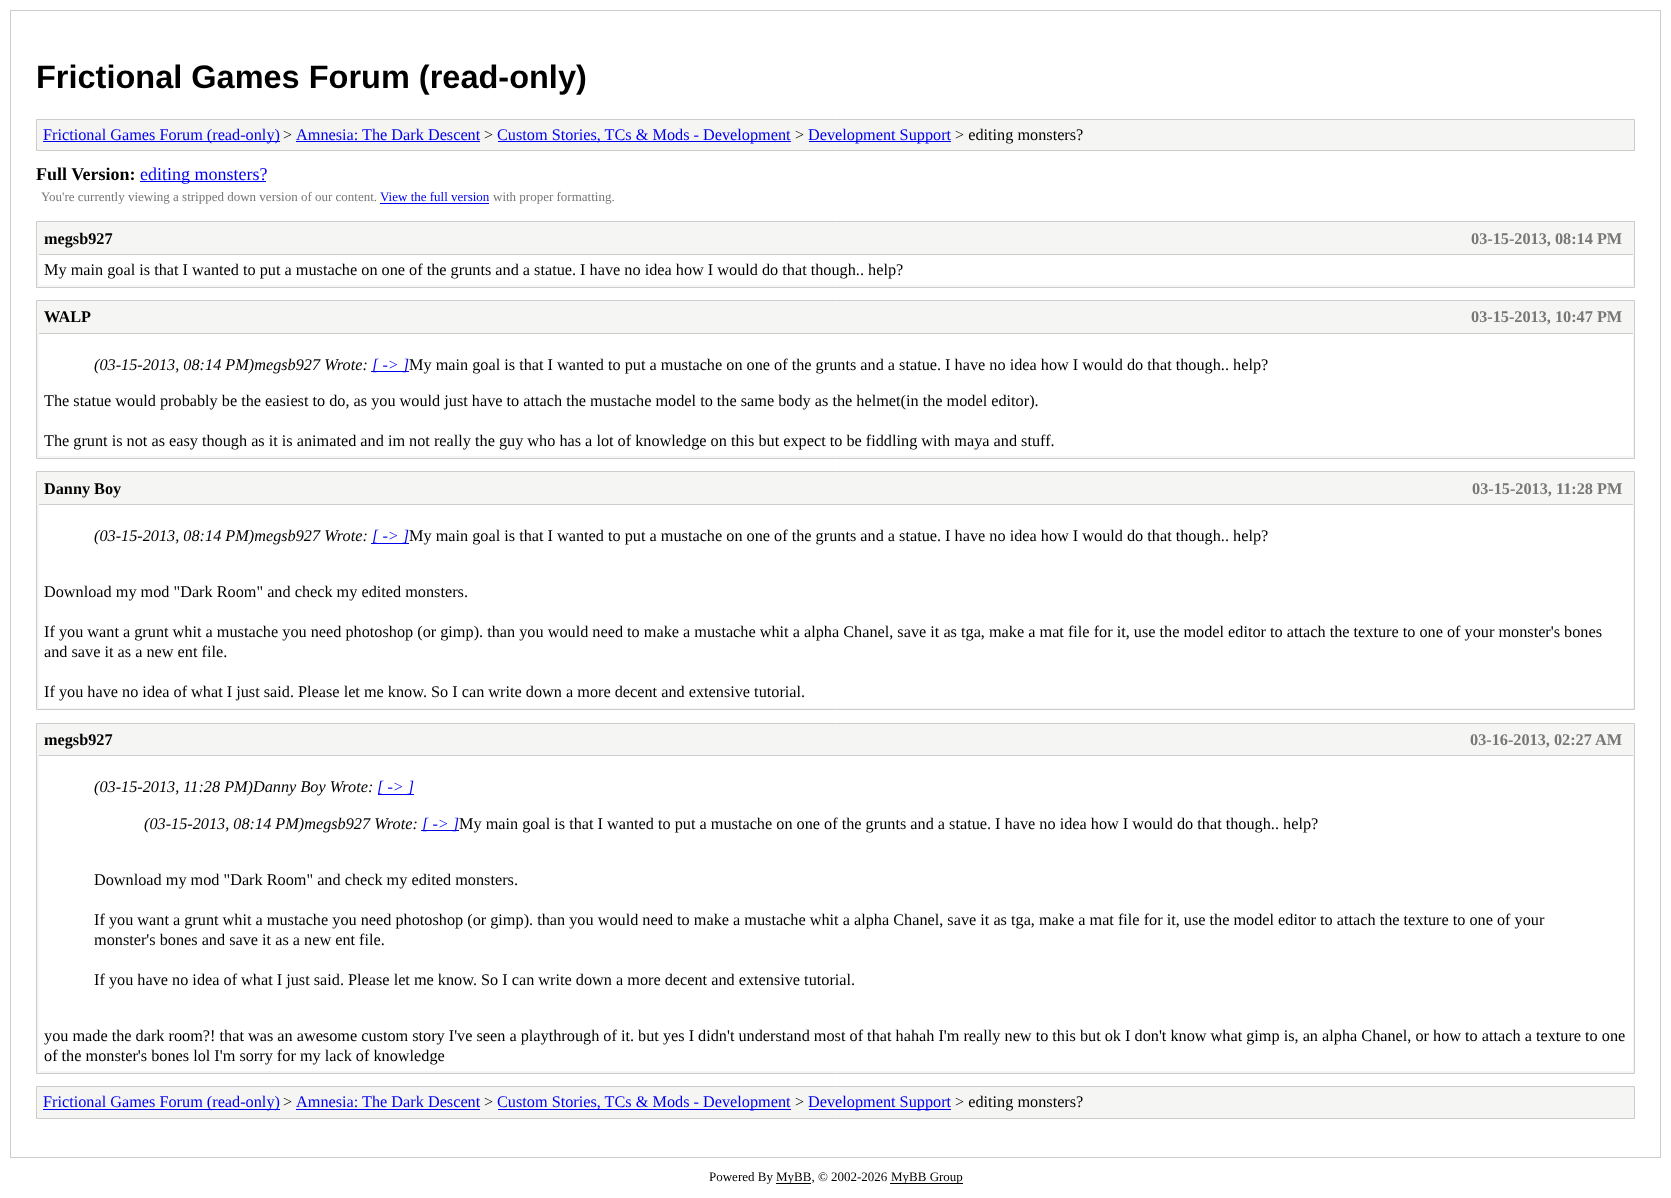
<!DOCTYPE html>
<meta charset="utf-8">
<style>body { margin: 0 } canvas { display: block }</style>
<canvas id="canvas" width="1671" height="1198"></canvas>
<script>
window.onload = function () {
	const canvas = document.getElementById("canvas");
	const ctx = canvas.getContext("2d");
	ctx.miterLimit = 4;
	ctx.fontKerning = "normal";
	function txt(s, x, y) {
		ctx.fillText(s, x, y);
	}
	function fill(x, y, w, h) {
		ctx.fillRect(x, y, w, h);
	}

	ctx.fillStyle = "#FFFFFF";
	fill(0, 0, 1671, 1198);
	ctx.strokeStyle = "#CCCCCC";
	ctx.strokeRect(10.5, 10.5, 1650, 1147);
	ctx.fillStyle = "#F5F5F4";
	ctx.beginPath();
	ctx.rect(36.5, 119.5, 1598, 31);
	ctx.fill();
	ctx.stroke();
	ctx.fillStyle = "#0000EE";
	fill(43, 141, 237, 1);
	fill(296, 141, 184, 1);
	fill(498, 141, 293, 1);
	fill(809, 141, 142, 1);
	fill(140, 181, 126, 1);
	fill(380, 203, 109, 1);
	ctx.fillStyle = "#F5F5F4";
	ctx.beginPath();
	ctx.rect(36.5, 221.5, 1598, 66);
	ctx.fill();
	ctx.stroke();
	ctx.fillStyle = "#CCCCCC";
	fill(39, 254, 1594, 1);
	ctx.fillStyle = "#FFFFFF";
	fill(39, 255, 1594, 30);
	ctx.fillStyle = "#F5F5F4";
	ctx.beginPath();
	ctx.rect(36.5, 300.5, 1598, 158);
	ctx.fill();
	ctx.stroke();
	ctx.fillStyle = "#CCCCCC";
	fill(39, 333, 1594, 1);
	ctx.fillStyle = "#FFFFFF";
	fill(39, 334, 1594, 122);
	ctx.fillStyle = "#0000EE";
	fill(371, 371, 38, 1);
	ctx.fillStyle = "#F5F5F4";
	ctx.beginPath();
	ctx.rect(36.5, 471.5, 1598, 238);
	ctx.fill();
	ctx.stroke();
	ctx.fillStyle = "#CCCCCC";
	fill(39, 504, 1594, 1);
	ctx.fillStyle = "#FFFFFF";
	fill(39, 505, 1594, 203);
	ctx.fillStyle = "#0000EE";
	fill(371, 543, 38, 1);
	ctx.fillStyle = "#F5F5F4";
	ctx.beginPath();
	ctx.rect(36.5, 723.5, 1598, 350);
	ctx.fill();
	ctx.stroke();
	ctx.fillStyle = "#CCCCCC";
	fill(39, 755, 1594, 1);
	ctx.fillStyle = "#FFFFFF";
	fill(39, 756, 1594, 315);
	ctx.fillStyle = "#0000EE";
	fill(378, 794, 36, 1);
	fill(421, 830, 38, 1);
	ctx.fillStyle = "#F5F5F4";
	ctx.beginPath();
	ctx.rect(36.5, 1086.5, 1598, 32);
	ctx.fill();
	ctx.stroke();
	ctx.fillStyle = "#0000EE";
	fill(43, 1109, 237, 1);
	fill(296, 1109, 184, 1);
	fill(498, 1109, 293, 1);
	fill(809, 1109, 142, 1);
	ctx.fillStyle = "#000000";
	fill(776, 1183, 35, 1);
	fill(890, 1183, 73, 1);
	ctx.font = "bold 32.5px Liberation Sans";
	txt("Frictional Games Forum (read-only)", 36, 88);
	ctx.font = "16.25px Liberation Serif";
	ctx.fillStyle = "#0000EE";
	txt("Frictional Games Forum (read-only)", 43, 140);
	ctx.fillStyle = "#000000";
	txt(">", 283, 140);
	ctx.fillStyle = "#0000EE";
	txt("Amnesia: The Dark Descent", 296, 140);
	ctx.fillStyle = "#000000";
	txt(">", 484, 140);
	ctx.fillStyle = "#0000EE";
	txt("Custom Stories, TCs & Mods - Development", 497, 140);
	ctx.fillStyle = "#000000";
	txt(">", 795, 140);
	ctx.fillStyle = "#0000EE";
	txt("Development Support", 808, 140);
	ctx.fillStyle = "#000000";
	txt("> editing monsters?", 955, 140);
	ctx.font = "bold 18px Liberation Serif";
	txt("Full Version:", 36, 180);
	ctx.font = "18px Liberation Serif";
	ctx.fillStyle = "#0000EE";
	txt("editing monsters?", 140, 180);
	ctx.font = "13px Liberation Serif";
	ctx.fillStyle = "#777777";
	txt("You're currently viewing a stripped down version of our content.", 41, 201);
	ctx.fillStyle = "#0000EE";
	txt("View the full version", 380, 201);
	ctx.fillStyle = "#777777";
	txt("with proper formatting.", 493, 201);
	ctx.font = "bold 16.25px Liberation Serif";
	ctx.fillStyle = "#000000";
	txt("megsb927", 44, 244);
	ctx.fillStyle = "#777777";
	txt("03-15-2013, 08:14 PM", 1471, 244);
	ctx.font = "16.25px Liberation Serif";
	ctx.fillStyle = "#000000";
	txt("My main goal is that I wanted to put a mustache on one of the grunts and a statue. I have no idea how I would do that though.. help?", 44, 275);
	ctx.font = "bold 16.25px Liberation Serif";
	txt("WALP", 44, 322);
	ctx.fillStyle = "#777777";
	txt("03-15-2013, 10:47 PM", 1471, 322);
	ctx.font = "italic 16.25px Liberation Serif";
	ctx.fillStyle = "#000000";
	txt("(03-15-2013, 08:14 PM)megsb927 Wrote:", 94, 370);
	ctx.fillStyle = "#0000EE";
	txt("[ -> ]", 372, 370);
	ctx.font = "16.25px Liberation Serif";
	ctx.fillStyle = "#000000";
	txt("My main goal is that I wanted to put a mustache on one of the grunts and a statue. I have no idea how I would do that though.. help?", 409, 370);
	txt("The statue would probably be the easiest to do, as you would just have to attach the mustache model to the same body as the helmet(in the model editor).", 44, 406);
	txt("The grunt is not as easy though as it is animated and im not really the guy who has a lot of knowledge on this but expect to be fiddling with maya and stuff.", 44, 446);
	ctx.font = "bold 16.25px Liberation Serif";
	txt("Danny Boy", 44, 494);
	ctx.fillStyle = "#777777";
	txt("03-15-2013, 11:28 PM", 1472, 494);
	ctx.font = "italic 16.25px Liberation Serif";
	ctx.fillStyle = "#000000";
	txt("(03-15-2013, 08:14 PM)megsb927 Wrote:", 94, 541);
	ctx.fillStyle = "#0000EE";
	txt("[ -> ]", 372, 541);
	ctx.font = "16.25px Liberation Serif";
	ctx.fillStyle = "#000000";
	txt("My main goal is that I wanted to put a mustache on one of the grunts and a statue. I have no idea how I would do that though.. help?", 409, 541);
	txt("Download my mod \"Dark Room\" and check my edited monsters.", 44, 597);
	txt("If you want a grunt whit a mustache you need photoshop (or gimp). than you would need to make a mustache whit a alpha Chanel, save it as tga, make a mat file for it, use the model editor to attach the texture to one of your monster's bones", 44, 637);
	txt("and save it as a new ent file.", 44, 657);
	txt("If you have no idea of what I just said. Please let me know. So I can write down a more decent and extensive tutorial.", 44, 697);
	ctx.font = "bold 16.25px Liberation Serif";
	txt("megsb927", 44, 745);
	ctx.fillStyle = "#777777";
	txt("03-16-2013, 02:27 AM", 1470, 745);
	ctx.font = "italic 16.25px Liberation Serif";
	ctx.fillStyle = "#000000";
	txt("(03-15-2013, 11:28 PM)Danny Boy Wrote:", 94, 792);
	ctx.fillStyle = "#0000EE";
	txt("[ -> ]", 377, 792);
	ctx.fillStyle = "#000000";
	txt("(03-15-2013, 08:14 PM)megsb927 Wrote:", 144, 829);
	ctx.fillStyle = "#0000EE";
	txt("[ -> ]", 422, 829);
	ctx.font = "16.25px Liberation Serif";
	ctx.fillStyle = "#000000";
	txt("My main goal is that I wanted to put a mustache on one of the grunts and a statue. I have no idea how I would do that though.. help?", 459, 829);
	txt("Download my mod \"Dark Room\" and check my edited monsters.", 94, 885);
	txt("If you want a grunt whit a mustache you need photoshop (or gimp). than you would need to make a mustache whit a alpha Chanel, save it as tga, make a mat file for it, use the model editor to attach the texture to one of your", 94, 925);
	txt("monster's bones and save it as a new ent file.", 94, 945);
	txt("If you have no idea of what I just said. Please let me know. So I can write down a more decent and extensive tutorial.", 94, 985);
	txt("you made the dark room?! that was an awesome custom story I've seen a playthrough of it. but yes I didn't understand most of that hahah I'm really new to this but ok I don't know what gimp is, an alpha Chanel, or how to attach a texture to one", 44, 1041);
	txt("of the monster's bones lol I'm sorry for my lack of knowledge", 44, 1061);
	ctx.fillStyle = "#0000EE";
	txt("Frictional Games Forum (read-only)", 43, 1107);
	ctx.fillStyle = "#000000";
	txt(">", 283, 1107);
	ctx.fillStyle = "#0000EE";
	txt("Amnesia: The Dark Descent", 296, 1107);
	ctx.fillStyle = "#000000";
	txt(">", 484, 1107);
	ctx.fillStyle = "#0000EE";
	txt("Custom Stories, TCs & Mods - Development", 497, 1107);
	ctx.fillStyle = "#000000";
	txt(">", 795, 1107);
	ctx.fillStyle = "#0000EE";
	txt("Development Support", 808, 1107);
	ctx.fillStyle = "#000000";
	txt("> editing monsters?", 955, 1107);
	ctx.font = "13px Liberation Serif";
	txt("Powered By", 709, 1181);
	txt("MyBB, © 2002-2026", 776, 1181);
	txt("MyBB Group", 891, 1181);
};
</script>
